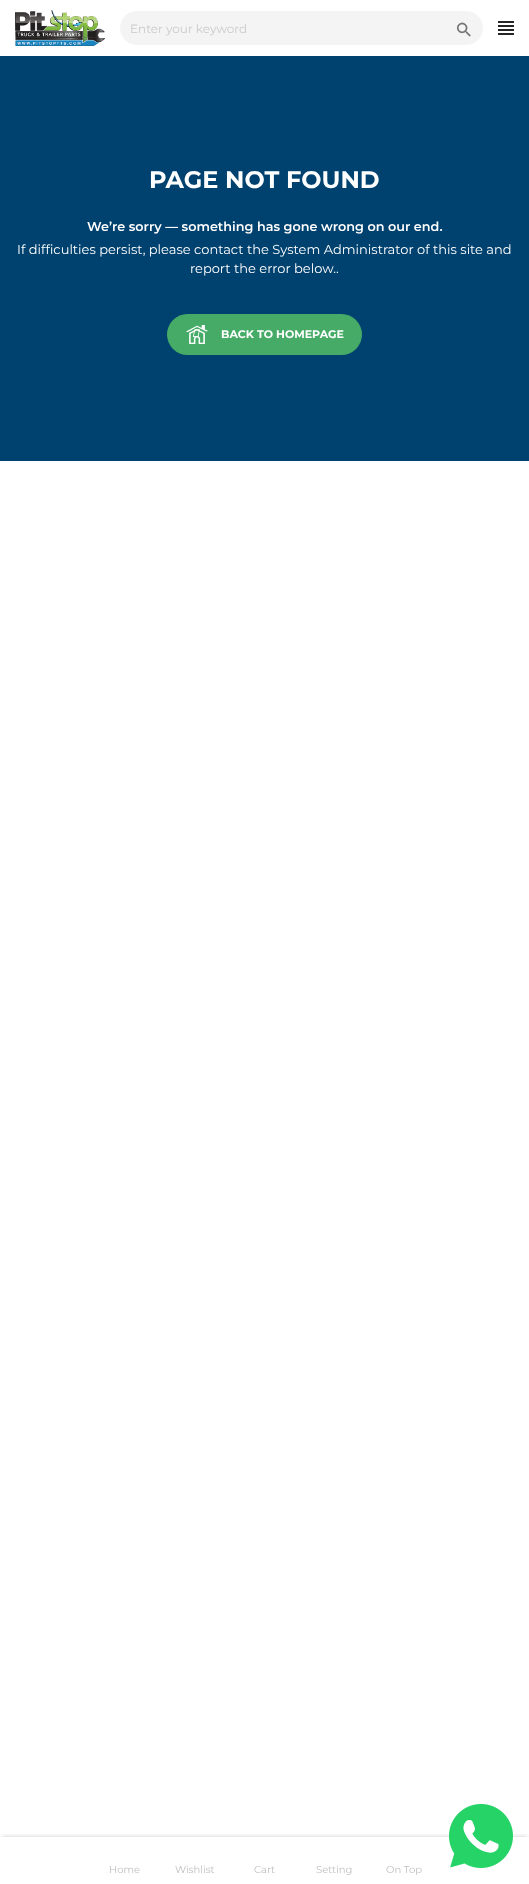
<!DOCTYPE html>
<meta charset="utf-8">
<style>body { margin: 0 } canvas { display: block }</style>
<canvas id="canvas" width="529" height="1884"></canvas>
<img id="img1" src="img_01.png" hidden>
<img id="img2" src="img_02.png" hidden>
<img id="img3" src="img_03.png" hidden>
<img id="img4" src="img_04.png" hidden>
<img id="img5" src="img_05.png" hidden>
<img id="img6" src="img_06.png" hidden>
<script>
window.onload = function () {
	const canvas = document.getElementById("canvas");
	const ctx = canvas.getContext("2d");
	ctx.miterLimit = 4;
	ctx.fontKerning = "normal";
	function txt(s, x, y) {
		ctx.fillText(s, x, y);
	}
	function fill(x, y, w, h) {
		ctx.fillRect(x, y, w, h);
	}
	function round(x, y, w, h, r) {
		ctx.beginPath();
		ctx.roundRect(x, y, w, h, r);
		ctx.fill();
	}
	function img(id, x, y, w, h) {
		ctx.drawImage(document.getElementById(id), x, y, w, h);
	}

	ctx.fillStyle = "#FFFFFF";
	fill(0, 0, 529, 1884);
	img("img1", 15, 10, 90, 36);
	ctx.fillStyle = "#F4F4F4";
	round(120, 11, 363, 34, 17);
	img("img2", 457, 22, 14, 15);
	img("img3", 498, 21, 16, 14);
	ctx.fillStyle = "#00426F";
	fill(0, 56, 529, 405);
	ctx.fillStyle = "#45AB67";
	round(167, 314, 195, 41, 20.5);
	img("img4", 186, 325, 22, 19);
	img("img5", 192, 329, 8, 8);
	ctx.save();
	ctx.beginPath();
	ctx.rect(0, 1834, 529, 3);
	ctx.clip();
	ctx.fillStyle = "rgba(0, 0, 0, 0.2)";
	ctx.filter = "blur(2.5px)";
	ctx.beginPath();
	ctx.rect(2, 1837, 525, 43);
	ctx.fill();
	ctx.filter = "none";
	ctx.restore();
	img("img6", 449, 1804, 64, 64);
	ctx.font = "12px Montserrat";
	ctx.fillStyle = "#CCCBCB";
	txt("Enter your keyword", 130, 33);
	ctx.font = "bold 24px Montserrat";
	ctx.fillStyle = "#FFFFFF";
	txt("PAGE NOT FOUND", 149, 188);
	ctx.font = "600 12.8px Montserrat";
	txt("We’re sorry — something has gone wrong on our end.", 87, 231);
	ctx.font = "13px Montserrat";
	txt("If difficulties persist, please contact the System Administrator of this site and", 17, 254);
	txt("report the error below..", 190, 273);
	ctx.font = "bold 11px Montserrat";
	txt("BACK TO HOMEPAGE", 221, 338);
	ctx.font = "10px Montserrat";
	ctx.fillStyle = "#BEBEBE";
	txt("Home", 109, 1873);
	txt("Wishlist", 175, 1873);
	txt("Cart", 254, 1873);
	txt("Setting", 316, 1873);
	txt("On Top", 386, 1873);
};
</script>
